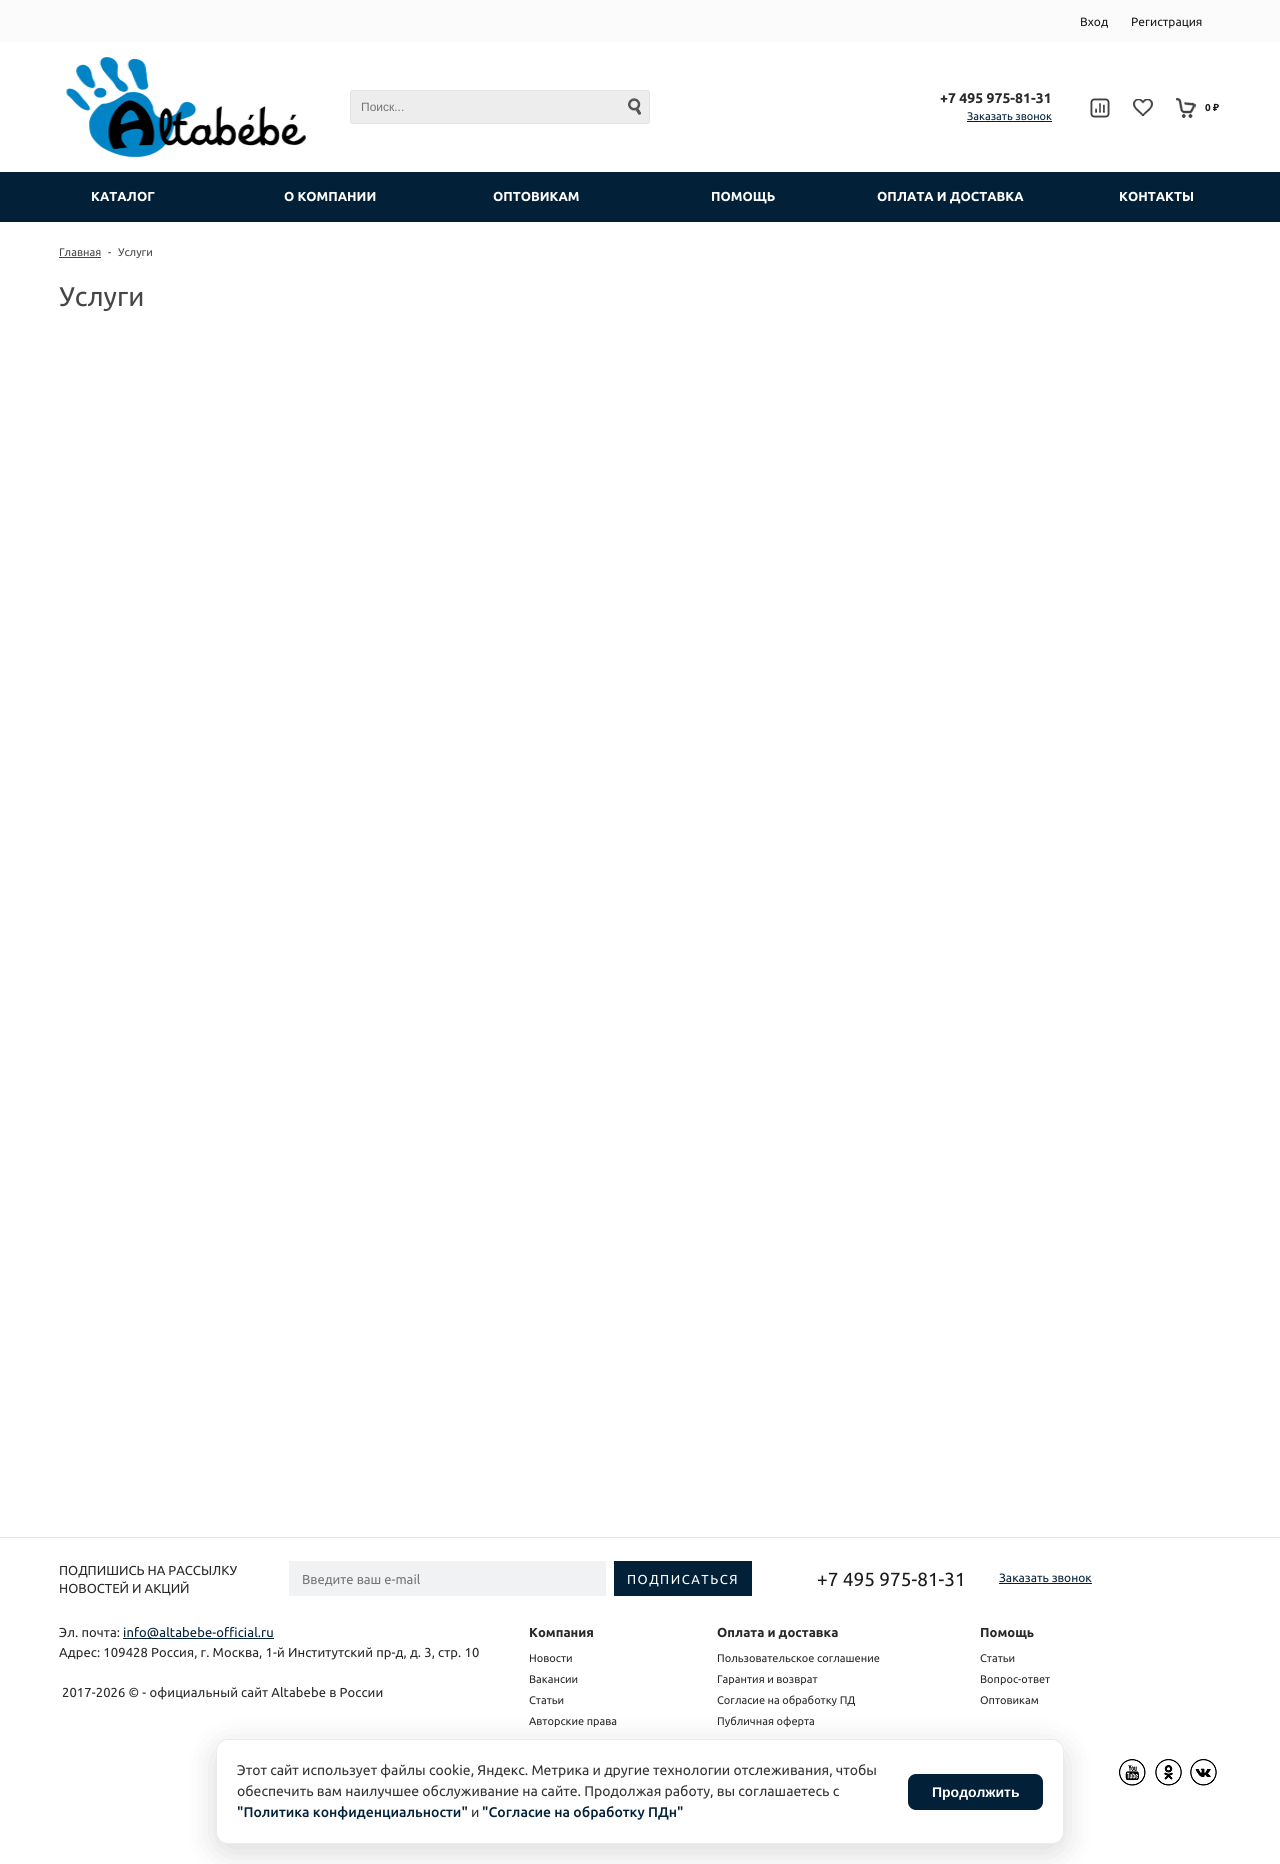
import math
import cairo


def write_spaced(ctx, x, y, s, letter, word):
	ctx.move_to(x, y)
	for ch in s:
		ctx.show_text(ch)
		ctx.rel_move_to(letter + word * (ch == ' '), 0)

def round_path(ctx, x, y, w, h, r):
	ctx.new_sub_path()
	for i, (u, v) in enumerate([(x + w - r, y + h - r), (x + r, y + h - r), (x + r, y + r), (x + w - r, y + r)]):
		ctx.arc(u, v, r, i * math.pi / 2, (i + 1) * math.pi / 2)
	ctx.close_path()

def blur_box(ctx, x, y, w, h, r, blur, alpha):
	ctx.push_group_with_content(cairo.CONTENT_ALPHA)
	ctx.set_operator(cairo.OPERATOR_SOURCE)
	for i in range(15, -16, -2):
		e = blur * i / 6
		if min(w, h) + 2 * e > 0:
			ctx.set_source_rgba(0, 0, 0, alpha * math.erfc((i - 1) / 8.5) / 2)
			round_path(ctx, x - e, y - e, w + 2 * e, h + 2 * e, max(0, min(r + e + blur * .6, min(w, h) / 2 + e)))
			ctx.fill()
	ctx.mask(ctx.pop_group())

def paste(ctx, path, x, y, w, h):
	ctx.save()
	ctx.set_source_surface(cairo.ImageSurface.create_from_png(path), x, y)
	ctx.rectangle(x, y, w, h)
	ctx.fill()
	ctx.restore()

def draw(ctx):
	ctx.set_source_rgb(1, 1, 1)
	ctx.paint()
	ctx.set_source_rgb(0.984, 0.984, 0.984)
	ctx.rectangle(0, 0, 1280, 42)
	ctx.fill()
	ctx.select_font_face('Ubuntu')
	ctx.set_font_size(12)
	ctx.set_source_rgb(0.114, 0.102, 0.102)
	ctx.move_to(1080, 26)
	ctx.show_text('Вход')
	ctx.move_to(1131, 26)
	ctx.show_text('Регистрация')
	paste(ctx, 'media/1.png', 66, 57, 240, 100)
	ctx.set_source_rgb(0.929, 0.929, 0.929)
	round_path(ctx, 350.5, 90.5, 299, 33, 2.5)
	ctx.fill_preserve()
	ctx.set_source_rgb(0.89, 0.89, 0.89)
	ctx.set_line_width(1)
	ctx.stroke()
	ctx.select_font_face('Liberation Sans')
	ctx.set_source_rgb(0.459, 0.459, 0.459)
	ctx.move_to(361, 111)
	ctx.show_text('Поиск...')
	paste(ctx, 'media/2.png', 628, 98, 13, 17)
	ctx.select_font_face('Ubuntu', cairo.FONT_SLANT_NORMAL, cairo.FONT_WEIGHT_BOLD)
	ctx.set_font_size(14)
	ctx.set_source_rgb(0.161, 0.161, 0.161)
	ctx.move_to(940, 103)
	ctx.show_text('+7 495 975-81-31')
	ctx.select_font_face('Ubuntu')
	ctx.set_font_size(11)
	ctx.set_source_rgb(0.012, 0.125, 0.224)
	ctx.move_to(967, 120)
	ctx.show_text('Заказать звонок')
	ctx.rectangle(967, 121, 85, 1)
	ctx.fill()
	paste(ctx, 'media/3.png', 1090, 98, 20, 20)
	paste(ctx, 'media/4.png', 1133, 99, 20, 17)
	paste(ctx, 'media/5.png', 1176, 98, 20, 20)
	ctx.select_font_face('Ubuntu', cairo.FONT_SLANT_NORMAL, cairo.FONT_WEIGHT_BOLD)
	ctx.set_font_size(10)
	ctx.set_source_rgb(0.114, 0.102, 0.102)
	ctx.move_to(1205, 111)
	ctx.show_text('0')
	ctx.select_font_face('Noto Sans', cairo.FONT_SLANT_NORMAL, cairo.FONT_WEIGHT_BOLD)
	ctx.move_to(1213, 111)
	ctx.show_text('₽')
	ctx.set_source_rgb(0.012, 0.125, 0.224)
	ctx.rectangle(0, 172, 1280, 50)
	ctx.fill()
	ctx.select_font_face('Ubuntu', cairo.FONT_SLANT_NORMAL, cairo.FONT_WEIGHT_BOLD)
	ctx.set_font_size(13)
	ctx.set_source_rgb(1, 1, 1)
	for x, y, s in [
		(91, 201, 'КАТАЛОГ'),
		(284, 201, 'О КОМПАНИИ'),
		(493, 201, 'ОПТОВИКАМ'),
		(711, 201, 'ПОМОЩЬ'),
		(877, 201, 'ОПЛАТА И ДОСТАВКА'),
		(1119, 201, 'КОНТАКТЫ'),
	]:
		ctx.move_to(x, y)
		ctx.show_text(s)
	ctx.select_font_face('Ubuntu')
	ctx.set_font_size(11)
	ctx.set_source_rgb(0.267, 0.275, 0.282)
	ctx.move_to(59, 256)
	ctx.show_text('Главная')
	ctx.rectangle(59, 257, 42, 1)
	ctx.fill()
	ctx.move_to(108, 256)
	ctx.show_text('-')
	ctx.move_to(118, 256)
	ctx.show_text('Услуги')
	ctx.set_font_size(27)
	ctx.move_to(59, 306)
	ctx.show_text('Услуги')
	ctx.set_source_rgb(0.906, 0.906, 0.906)
	ctx.rectangle(0, 1537, 1280, 1)
	ctx.fill()
	ctx.set_font_size(13)
	ctx.set_source_rgb(0.161, 0.161, 0.161)
	ctx.move_to(59, 1575)
	ctx.show_text('ПОДПИШИСЬ НА РАССЫЛКУ')
	ctx.move_to(59, 1593)
	ctx.show_text('НОВОСТЕЙ И АКЦИЙ')
	ctx.set_source_rgb(0.941, 0.949, 0.953)
	ctx.rectangle(289, 1561, 317, 35)
	ctx.fill()
	ctx.set_source_rgb(0.459, 0.459, 0.459)
	ctx.move_to(302, 1584)
	ctx.show_text('Введите ваш e-mail')
	ctx.set_source_rgb(0.012, 0.125, 0.224)
	ctx.rectangle(614, 1561, 138, 35)
	ctx.fill()
	ctx.set_source_rgb(1, 1, 1)
	write_spaced(ctx, 627, 1584, 'ПОДПИСАТЬСЯ', 1.5, 0)
	ctx.set_font_size(19)
	ctx.set_source_rgb(0.114, 0.102, 0.102)
	ctx.move_to(817, 1586)
	ctx.show_text('+7 495 975-81-31')
	ctx.set_font_size(12)
	ctx.set_source_rgb(0.012, 0.125, 0.224)
	ctx.move_to(999, 1582)
	ctx.show_text('Заказать звонок')
	ctx.rectangle(999, 1583, 93, 1)
	ctx.fill()
	ctx.set_font_size(13)
	ctx.set_source_rgb(0.161, 0.161, 0.161)
	write_spaced(ctx, 59, 1637, 'Эл. почта:', 0.1, 0)
	ctx.set_source_rgb(0.012, 0.125, 0.224)
	ctx.rectangle(123, 1638, 151, 1)
	ctx.fill()
	write_spaced(ctx, 123, 1637, 'info@altabebe-official.ru', 0.1, 0)
	ctx.set_source_rgb(0.161, 0.161, 0.161)
	write_spaced(ctx, 59, 1657, 'Адрес: 109428 Россия, г. Москва, 1-й Институтский пр-д, д. 3, стр. 10', 0.1, 0)
	write_spaced(ctx, 62, 1697, '2017-2026 © - официальный сайт Altabebe в России', 0.1, 0)
	ctx.select_font_face('Ubuntu', cairo.FONT_SLANT_NORMAL, cairo.FONT_WEIGHT_BOLD)
	ctx.move_to(529, 1637)
	ctx.show_text('Компания')
	ctx.select_font_face('Ubuntu')
	ctx.set_font_size(11)
	for x, y, s in [
		(529, 1662, 'Новости'),
		(529, 1683, 'Вакансии'),
		(529, 1704, 'Статьи'),
		(529, 1725, 'Авторские права'),
	]:
		ctx.move_to(x, y)
		ctx.show_text(s)
	ctx.select_font_face('Ubuntu', cairo.FONT_SLANT_NORMAL, cairo.FONT_WEIGHT_BOLD)
	ctx.set_font_size(13)
	ctx.move_to(717, 1637)
	ctx.show_text('Оплата и доставка')
	ctx.select_font_face('Ubuntu')
	ctx.set_font_size(11)
	for x, y, s in [
		(717, 1662, 'Пользовательское соглашение'),
		(717, 1683, 'Гарантия и возврат'),
		(717, 1704, 'Согласие на обработку ПД'),
		(717, 1725, 'Публичная оферта'),
	]:
		ctx.move_to(x, y)
		ctx.show_text(s)
	ctx.select_font_face('Ubuntu', cairo.FONT_SLANT_NORMAL, cairo.FONT_WEIGHT_BOLD)
	ctx.set_font_size(13)
	ctx.move_to(980, 1637)
	ctx.show_text('Помощь')
	ctx.select_font_face('Ubuntu')
	ctx.set_font_size(11)
	for x, y, s in [
		(980, 1662, 'Статьи'),
		(980, 1683, 'Вопрос-ответ'),
		(980, 1704, 'Оптовикам'),
	]:
		ctx.move_to(x, y)
		ctx.show_text(s)
	paste(ctx, 'media/6.png', 1119, 1759, 27, 27)
	paste(ctx, 'media/7.png', 1155, 1759, 27, 27)
	paste(ctx, 'media/8.png', 1190, 1759, 27, 27)
	ctx.set_source_rgb(0, 0, 0)
	blur_box(ctx, 216, 1747, 848, 105, 12, 16, 0.15)
	ctx.set_source_rgb(1, 1, 1)
	round_path(ctx, 216.5, 1739.5, 847, 104, 11.5)
	ctx.fill_preserve()
	ctx.set_source_rgb(0.914, 0.925, 0.937)
	ctx.stroke()
	ctx.set_font_size(14)
	ctx.set_source_rgb(0.2, 0.2, 0.2)
	ctx.move_to(237, 1775)
	ctx.show_text('Этот сайт использует файлы cookie, Яндекс. Метрика и другие технологии отслеживания, чтобы')
	ctx.move_to(237, 1796)
	ctx.show_text('обеспечить вам наилучшее обслуживание на сайте. Продолжая работу, вы соглашаетесь с')
	ctx.select_font_face('Ubuntu Medium')
	ctx.set_source_rgb(0.012, 0.125, 0.224)
	ctx.move_to(237, 1817)
	ctx.show_text('"Политика конфиденциальности"')
	ctx.select_font_face('Ubuntu')
	ctx.set_source_rgb(0.2, 0.2, 0.2)
	ctx.move_to(471, 1817)
	ctx.show_text('и')
	ctx.select_font_face('Ubuntu Medium')
	ctx.set_source_rgb(0.012, 0.125, 0.224)
	ctx.move_to(482, 1817)
	ctx.show_text('"Согласие на обработку ПДн"')
	round_path(ctx, 908, 1774, 135, 36, 8)
	ctx.fill()
	ctx.select_font_face('Liberation Sans', cairo.FONT_SLANT_NORMAL, cairo.FONT_WEIGHT_BOLD)
	ctx.set_source_rgb(1, 1, 1)
	ctx.move_to(932, 1797)
	ctx.show_text('Продолжить')


surface = cairo.ImageSurface(cairo.FORMAT_RGB24, 1280, 1864)
ctx = cairo.Context(surface)
options = cairo.FontOptions()
options.set_hint_metrics(cairo.HINT_METRICS_OFF)
options.set_hint_style(cairo.HINT_STYLE_NONE)
ctx.set_font_options(options)
ctx.set_miter_limit(4)
draw(ctx)
surface.write_to_png('image.png')
